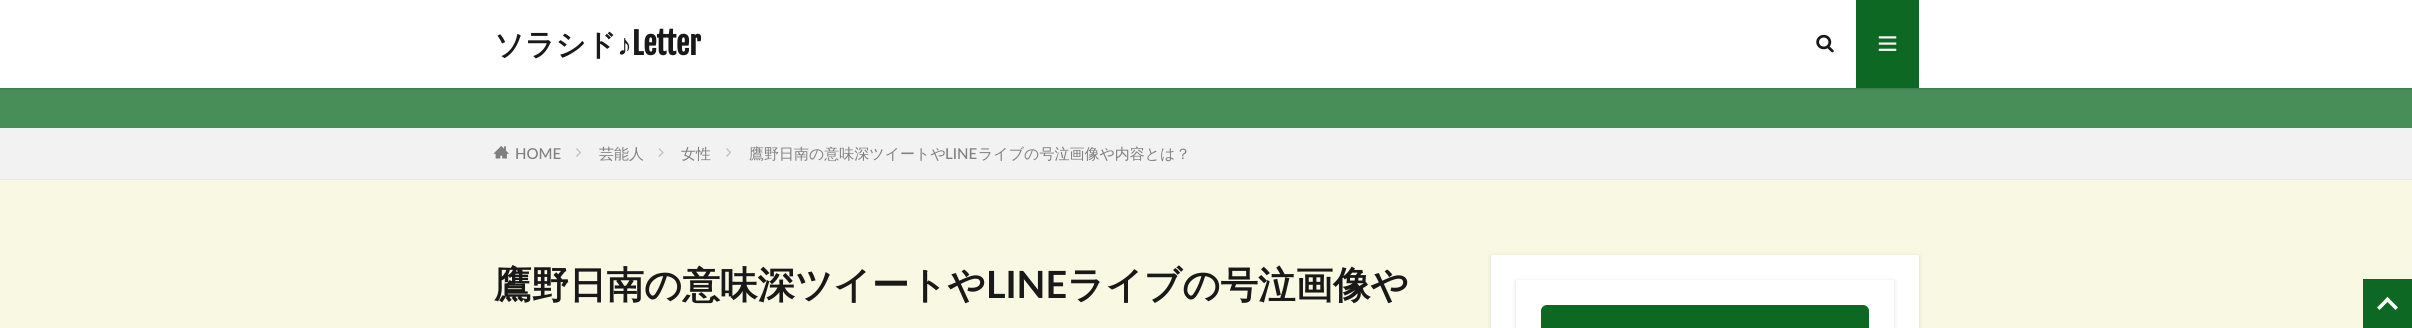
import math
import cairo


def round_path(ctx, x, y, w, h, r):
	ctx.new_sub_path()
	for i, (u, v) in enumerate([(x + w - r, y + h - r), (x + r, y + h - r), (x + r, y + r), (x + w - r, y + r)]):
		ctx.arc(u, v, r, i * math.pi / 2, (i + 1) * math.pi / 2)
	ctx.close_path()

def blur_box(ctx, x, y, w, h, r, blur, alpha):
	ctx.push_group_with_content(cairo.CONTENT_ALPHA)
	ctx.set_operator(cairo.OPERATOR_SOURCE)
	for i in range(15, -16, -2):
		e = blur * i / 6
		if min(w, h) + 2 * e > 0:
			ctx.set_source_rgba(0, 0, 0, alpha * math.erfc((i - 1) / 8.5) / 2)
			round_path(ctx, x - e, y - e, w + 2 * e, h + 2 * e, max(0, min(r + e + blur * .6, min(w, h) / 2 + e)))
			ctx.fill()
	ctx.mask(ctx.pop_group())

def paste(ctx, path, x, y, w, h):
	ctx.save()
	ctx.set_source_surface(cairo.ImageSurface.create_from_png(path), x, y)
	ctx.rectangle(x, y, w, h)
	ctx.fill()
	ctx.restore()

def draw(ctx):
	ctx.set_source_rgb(0.976, 0.976, 0.89)
	ctx.paint()
	ctx.set_source_rgb(0.278, 0.557, 0.349)
	ctx.rectangle(0, 88, 2412, 40)
	ctx.fill()
	ctx.set_source_rgb(0, 0, 0)
	blur_box(ctx, 0, 1, 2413, 88, 0, 1, 0.15)
	ctx.set_source_rgb(1, 1, 1)
	ctx.rectangle(0, 0, 2412, 88)
	ctx.fill()
	ctx.select_font_face('WenQuanYi Zen Hei', cairo.FONT_SLANT_NORMAL, cairo.FONT_WEIGHT_BOLD)
	ctx.set_font_size(30)
	ctx.set_source_rgb(0.098, 0.098, 0.098)
	ctx.move_to(494, 55)
	ctx.show_text('ソラシド')
	ctx.select_font_face('Liberation Sans', cairo.FONT_SLANT_NORMAL, cairo.FONT_WEIGHT_BOLD)
	ctx.move_to(617, 55)
	ctx.show_text('♪')
	ctx.select_font_face('Fjalla One', cairo.FONT_SLANT_NORMAL, cairo.FONT_WEIGHT_BOLD)
	ctx.move_to(632, 55)
	ctx.show_text('Letter')
	paste(ctx, 'media/1.png', 1816, 34, 18, 19)
	ctx.set_source_rgb(0.047, 0.408, 0.133)
	ctx.rectangle(1856, 0, 63, 88)
	ctx.fill()
	paste(ctx, 'media/2.png', 1878, 36, 19, 15)
	ctx.set_source_rgb(0.949, 0.949, 0.949)
	ctx.rectangle(0, 128, 2412, 51)
	ctx.fill()
	ctx.set_source_rgb(0.902, 0.902, 0.902)
	ctx.rectangle(0, 179, 2412, 1)
	ctx.fill()
	paste(ctx, 'media/3.png', 493, 146, 16, 13)
	ctx.select_font_face('Lato Medium')
	ctx.set_font_size(15)
	ctx.set_source_rgb(0.498, 0.498, 0.498)
	ctx.move_to(515, 159)
	ctx.show_text('HOME')
	ctx.set_source_rgb(0.749, 0.749, 0.749)
	ctx.new_path()
	ctx.move_to(577, 148)
	ctx.line_to(581, 152.5)
	ctx.line_to(580.5, 153.5)
	ctx.line_to(576, 149)
	ctx.close_path()
	ctx.fill()
	ctx.new_path()
	ctx.move_to(580.5, 151.5)
	ctx.line_to(581, 152.5)
	ctx.line_to(577, 157)
	ctx.line_to(576, 156)
	ctx.close_path()
	ctx.fill()
	ctx.select_font_face('WenQuanYi Zen Hei Medium')
	ctx.set_source_rgb(0.498, 0.498, 0.498)
	ctx.move_to(599, 159)
	ctx.show_text('芸能人')
	ctx.set_source_rgb(0.749, 0.749, 0.749)
	ctx.new_path()
	ctx.move_to(659.5, 148)
	ctx.line_to(663.5, 152.5)
	ctx.line_to(663, 153.5)
	ctx.line_to(658.5, 149)
	ctx.close_path()
	ctx.fill()
	ctx.new_path()
	ctx.move_to(663, 151.5)
	ctx.line_to(663.5, 152.5)
	ctx.line_to(659.5, 157)
	ctx.line_to(658.5, 156)
	ctx.close_path()
	ctx.fill()
	ctx.set_source_rgb(0.498, 0.498, 0.498)
	ctx.move_to(681, 159)
	ctx.show_text('女性')
	ctx.set_source_rgb(0.749, 0.749, 0.749)
	ctx.new_path()
	ctx.move_to(727, 148)
	ctx.line_to(731, 152.5)
	ctx.line_to(730.5, 153.5)
	ctx.line_to(726, 149)
	ctx.close_path()
	ctx.fill()
	ctx.new_path()
	ctx.move_to(730.5, 151.5)
	ctx.line_to(731, 152.5)
	ctx.line_to(727, 157)
	ctx.line_to(726, 156)
	ctx.close_path()
	ctx.fill()
	ctx.set_source_rgb(0.498, 0.498, 0.498)
	ctx.move_to(749, 159)
	ctx.show_text('鷹野日南の意味深ツイートや')
	ctx.select_font_face('Lato Medium')
	ctx.move_to(945, 159)
	ctx.show_text('LINE')
	ctx.select_font_face('WenQuanYi Zen Hei Medium')
	ctx.move_to(978, 159)
	ctx.show_text('ライブの号泣画像や内容とは？')
	ctx.select_font_face('WenQuanYi Zen Hei', cairo.FONT_SLANT_NORMAL, cairo.FONT_WEIGHT_BOLD)
	ctx.set_font_size(37.5)
	ctx.set_source_rgb(0.098, 0.098, 0.098)
	ctx.move_to(494, 298)
	ctx.show_text('鷹野日南の意味深ツイートや')
	ctx.select_font_face('Lato', cairo.FONT_SLANT_NORMAL, cairo.FONT_WEIGHT_BOLD)
	ctx.move_to(986, 298)
	ctx.show_text('LINE')
	ctx.select_font_face('WenQuanYi Zen Hei', cairo.FONT_SLANT_NORMAL, cairo.FONT_WEIGHT_BOLD)
	ctx.move_to(1067, 298)
	ctx.show_text('ライブの号泣画像や')
	ctx.set_source_rgb(0, 0, 0)
	blur_box(ctx, 1491, 256, 428, 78, 0, 2, 0.15)
	ctx.set_source_rgb(1, 1, 1)
	ctx.rectangle(1491, 255, 428, 73)
	ctx.fill()
	ctx.set_source_rgb(0, 0, 0)
	blur_box(ctx, 1516, 281, 378, 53, 0, 2, 0.15)
	ctx.set_source_rgb(1, 1, 1)
	ctx.rectangle(1516, 280, 378, 48)
	ctx.fill()
	ctx.set_source_rgb(0.047, 0.408, 0.133)
	round_path(ctx, 1541, 305, 328, 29, 6)
	ctx.fill()
	ctx.rectangle(2363, 279, 49, 49)
	ctx.fill()
	ctx.set_source_rgb(1, 1, 1)
	ctx.new_path()
	ctx.move_to(2377, 307.5)
	ctx.line_to(2387.5, 297)
	ctx.line_to(2390, 299.5)
	ctx.line_to(2379.5, 310)
	ctx.close_path()
	ctx.fill()
	ctx.new_path()
	ctx.move_to(2385, 299.5)
	ctx.line_to(2387.5, 297)
	ctx.line_to(2398, 307.5)
	ctx.line_to(2395.5, 310)
	ctx.close_path()
	ctx.fill()


surface = cairo.ImageSurface(cairo.FORMAT_RGB24, 2412, 328)
ctx = cairo.Context(surface)
options = cairo.FontOptions()
options.set_hint_metrics(cairo.HINT_METRICS_OFF)
options.set_hint_style(cairo.HINT_STYLE_NONE)
ctx.set_font_options(options)
ctx.set_miter_limit(4)
draw(ctx)
surface.write_to_png('image.png')
